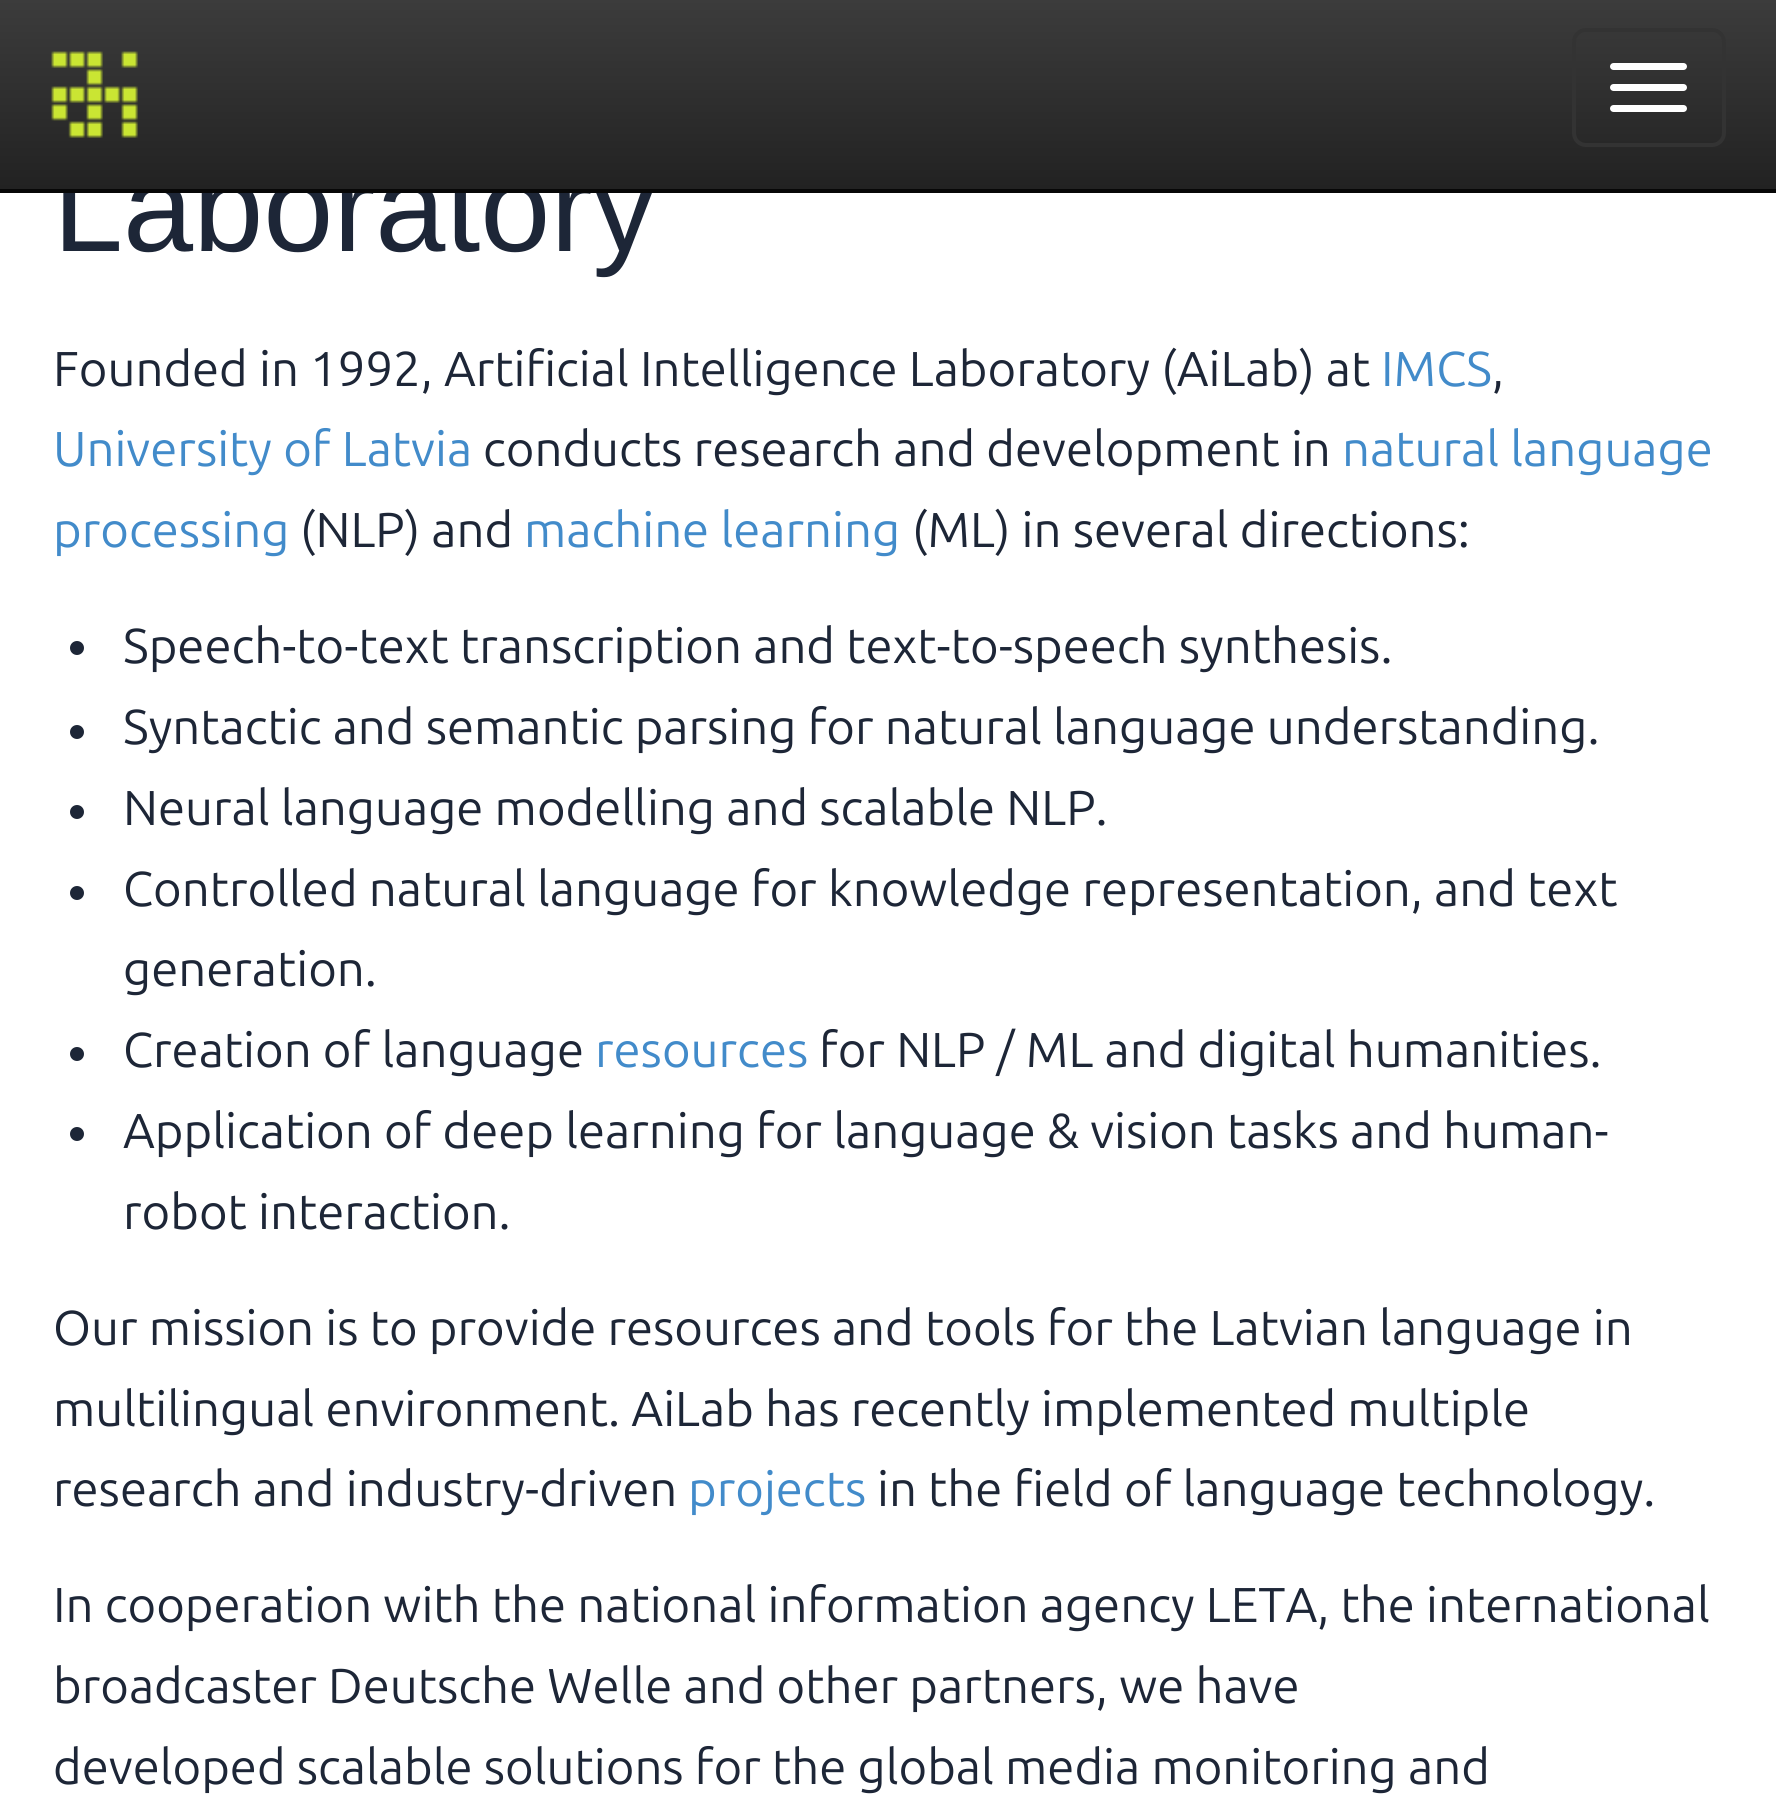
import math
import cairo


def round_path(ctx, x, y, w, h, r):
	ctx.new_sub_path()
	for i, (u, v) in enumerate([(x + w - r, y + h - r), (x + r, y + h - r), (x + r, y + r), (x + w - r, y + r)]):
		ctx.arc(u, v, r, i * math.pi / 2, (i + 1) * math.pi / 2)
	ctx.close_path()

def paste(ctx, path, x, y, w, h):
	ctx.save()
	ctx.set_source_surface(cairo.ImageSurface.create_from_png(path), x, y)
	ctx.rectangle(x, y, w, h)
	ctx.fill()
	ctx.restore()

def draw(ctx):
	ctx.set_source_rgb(1, 1, 1)
	ctx.paint()
	ctx.select_font_face('Liberation Sans')
	ctx.set_font_size(126)
	ctx.set_source_rgb(0.114, 0.149, 0.216)
	ctx.move_to(53, 251)
	ctx.show_text('Laboratory')
	gradient = cairo.LinearGradient(889, 0, 889, 189)
	gradient.add_color_stop_rgba(0, 0.235, 0.235, 0.235, 1)
	gradient.add_color_stop_rgba(1, 0.133, 0.133, 0.133, 1)
	ctx.set_source(gradient)
	ctx.rectangle(0, 0, 1776, 189)
	ctx.fill()
	ctx.set_source_rgb(0.031, 0.031, 0.031)
	ctx.rectangle(0, 189, 1776, 4)
	ctx.fill()
	paste(ctx, 'media/1.png', 51, 51, 87, 87)
	round_path(ctx, 1574, 30, 150, 115, 12)
	ctx.set_source_rgb(0.2, 0.2, 0.2)
	ctx.set_line_width(4)
	ctx.stroke()
	ctx.set_source_rgb(1, 1, 1)
	round_path(ctx, 1610, 63, 77, 7, 3.5)
	ctx.fill()
	round_path(ctx, 1610, 84, 77, 7, 3.5)
	ctx.fill()
	round_path(ctx, 1610, 105, 77, 7, 3.5)
	ctx.fill()
	ctx.select_font_face('Ubuntu')
	ctx.set_font_size(49)
	ctx.set_source_rgb(0.114, 0.149, 0.216)
	ctx.move_to(53, 386)
	ctx.show_text('Founded in 1992, Artificial Intelligence Laboratory (AiLab) at')
	ctx.set_source_rgb(0.259, 0.545, 0.792)
	ctx.move_to(1381, 386)
	ctx.show_text('IMCS')
	ctx.set_source_rgb(0.114, 0.149, 0.216)
	ctx.move_to(1492, 386)
	ctx.show_text(',')
	ctx.set_source_rgb(0.259, 0.545, 0.792)
	ctx.move_to(53, 466)
	ctx.show_text('University of Latvia')
	ctx.set_source_rgb(0.114, 0.149, 0.216)
	ctx.move_to(483, 466)
	ctx.show_text('conducts research and development in')
	ctx.set_source_rgb(0.259, 0.545, 0.792)
	ctx.move_to(1342, 466)
	ctx.show_text('natural language')
	ctx.move_to(53, 547)
	ctx.show_text('processing')
	ctx.set_source_rgb(0.114, 0.149, 0.216)
	ctx.move_to(300, 547)
	ctx.show_text('(NLP) and')
	ctx.set_source_rgb(0.259, 0.545, 0.792)
	ctx.move_to(524, 547)
	ctx.show_text('machine learning')
	ctx.set_source_rgb(0.114, 0.149, 0.216)
	ctx.move_to(912, 547)
	ctx.show_text('(ML) in several directions:')
	ctx.new_path()
	ctx.arc(77, 648, 7, 0, 2 * math.pi)
	ctx.fill()
	ctx.move_to(123, 663)
	ctx.show_text('Speech-to-text transcription and text-to-speech synthesis.')
	ctx.new_path()
	ctx.arc(77, 732, 7, 0, 2 * math.pi)
	ctx.fill()
	ctx.move_to(123, 744)
	ctx.show_text('Syntactic and semantic parsing for natural language understanding.')
	ctx.new_path()
	ctx.arc(77, 812, 7, 0, 2 * math.pi)
	ctx.fill()
	ctx.move_to(123, 825)
	ctx.show_text('Neural language modelling and scalable NLP.')
	ctx.new_path()
	ctx.arc(77, 893, 7, 0, 2 * math.pi)
	ctx.fill()
	ctx.move_to(123, 906)
	ctx.show_text('Controlled natural language for knowledge representation, and text')
	ctx.move_to(123, 986)
	ctx.show_text('generation.')
	ctx.new_path()
	ctx.arc(77, 1054, 7, 0, 2 * math.pi)
	ctx.fill()
	ctx.move_to(123, 1067)
	ctx.show_text('Creation of language')
	ctx.set_source_rgb(0.259, 0.545, 0.792)
	ctx.move_to(595, 1067)
	ctx.show_text('resources')
	ctx.set_source_rgb(0.114, 0.149, 0.216)
	ctx.move_to(819, 1067)
	ctx.show_text('for NLP / ML and digital humanities.')
	ctx.new_path()
	ctx.arc(77, 1134, 7, 0, 2 * math.pi)
	ctx.fill()
	for x, y, s in [
		(123, 1148, 'Application of deep learning for language & vision tasks and human-'),
		(123, 1229, 'robot interaction.'),
		(53, 1345, 'Our mission is to provide resources and tools for the Latvian language in'),
		(53, 1426, 'multilingual environment. AiLab has recently implemented multiple'),
		(53, 1506, 'research and industry-driven'),
	]:
		ctx.move_to(x, y)
		ctx.show_text(s)
	ctx.set_source_rgb(0.259, 0.545, 0.792)
	ctx.move_to(688, 1506)
	ctx.show_text('projects')
	ctx.set_source_rgb(0.114, 0.149, 0.216)
	for x, y, s in [
		(877, 1506, 'in the field of language technology.'),
		(53, 1622, 'In cooperation with the national information agency LETA, the international'),
		(53, 1703, 'broadcaster Deutsche Welle and other partners, we have'),
		(53, 1784, 'developed scalable solutions for the global media monitoring and'),
	]:
		ctx.move_to(x, y)
		ctx.show_text(s)


surface = cairo.ImageSurface(cairo.FORMAT_RGB24, 1776, 1794)
ctx = cairo.Context(surface)
options = cairo.FontOptions()
options.set_hint_metrics(cairo.HINT_METRICS_OFF)
options.set_hint_style(cairo.HINT_STYLE_NONE)
ctx.set_font_options(options)
ctx.set_miter_limit(4)
draw(ctx)
surface.write_to_png('image.png')
